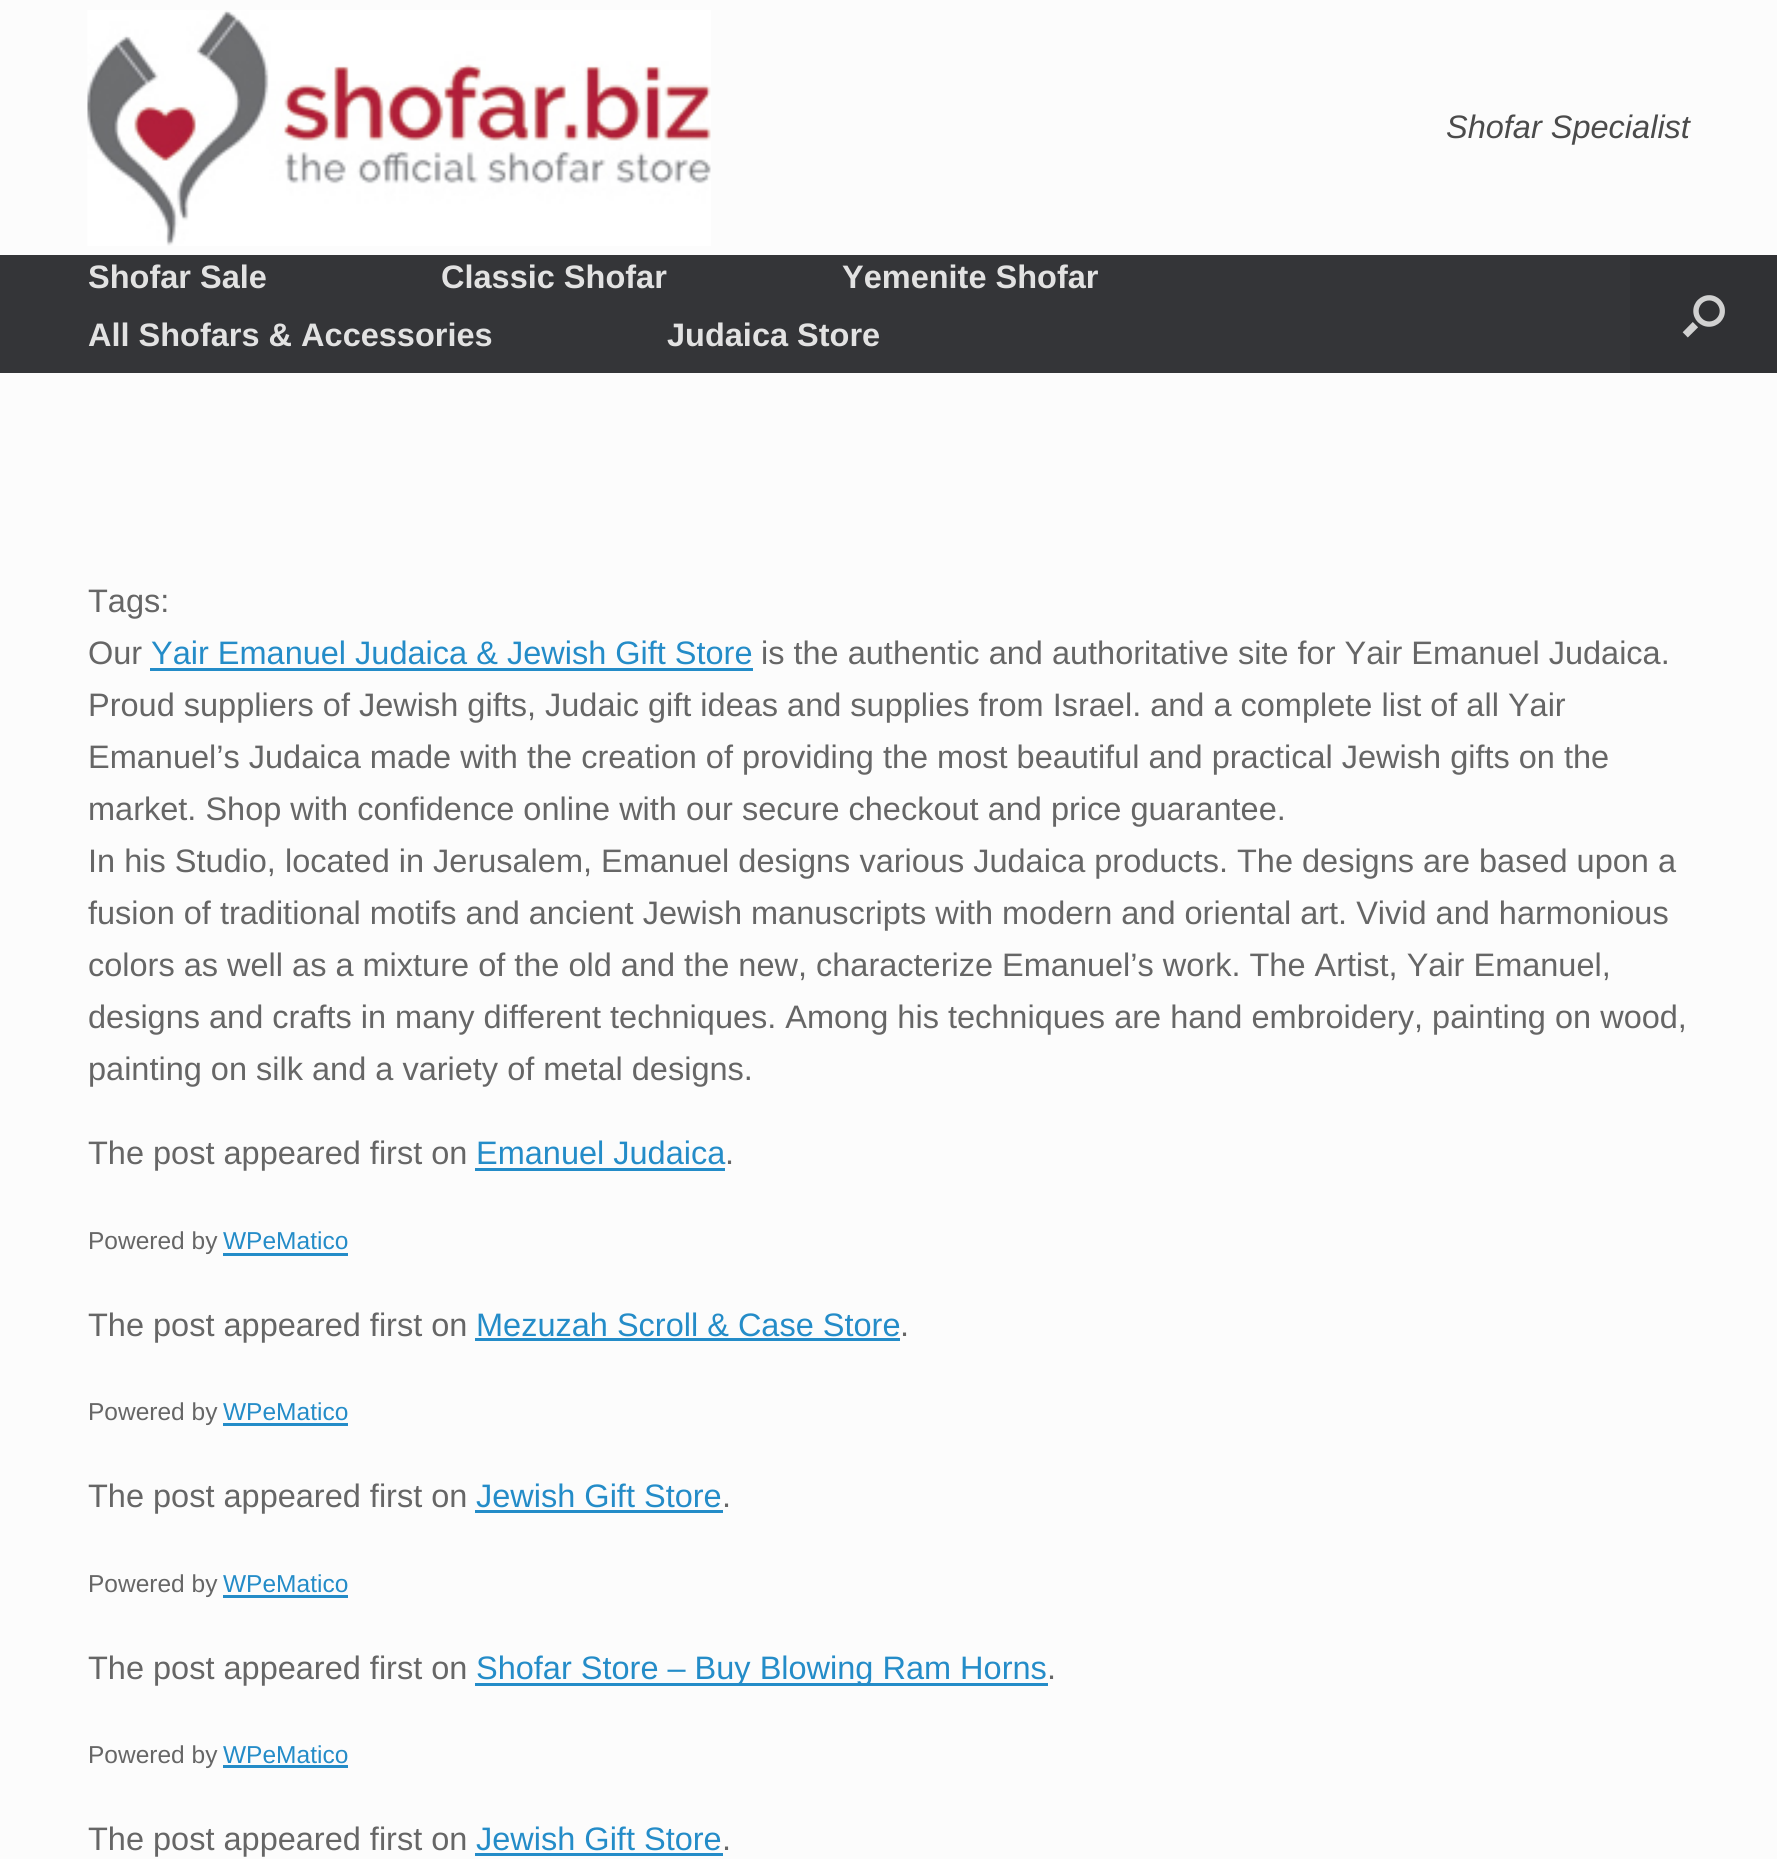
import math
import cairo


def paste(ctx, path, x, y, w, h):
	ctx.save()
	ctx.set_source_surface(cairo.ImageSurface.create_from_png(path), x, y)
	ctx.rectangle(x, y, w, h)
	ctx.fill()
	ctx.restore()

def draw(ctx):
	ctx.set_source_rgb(0.988, 0.988, 0.988)
	ctx.paint()
	paste(ctx, 'media/1.png', 87, 10, 624, 236)
	ctx.select_font_face('Liberation Sans', cairo.FONT_SLANT_ITALIC)
	ctx.set_font_size(32.5)
	ctx.set_source_rgb(0.294, 0.294, 0.294)
	ctx.move_to(1446, 138)
	ctx.show_text('Shofar Specialist')
	ctx.set_source_rgb(0.204, 0.208, 0.22)
	ctx.rectangle(0, 255, 1630, 118)
	ctx.fill()
	ctx.select_font_face('Liberation Sans', cairo.FONT_SLANT_NORMAL, cairo.FONT_WEIGHT_BOLD)
	ctx.set_source_rgb(0.886, 0.886, 0.886)
	for x, y, s in [
		(88, 288, 'Shofar Sale'),
		(441, 288, 'Classic Shofar'),
		(842, 288, 'Yemenite Shofar'),
		(88, 346, 'All Shofars & Accessories'),
		(667, 346, 'Judaica Store'),
	]:
		ctx.move_to(x, y)
		ctx.show_text(s)
	ctx.set_source_rgb(0.188, 0.192, 0.204)
	ctx.rectangle(1630, 255, 147, 118)
	ctx.fill()
	paste(ctx, 'media/2.png', 1682, 295, 43, 43)
	ctx.select_font_face('Liberation Sans')
	ctx.set_source_rgb(0.4, 0.4, 0.4)
	ctx.move_to(88, 612)
	ctx.show_text('Tags:')
	ctx.move_to(88, 664)
	ctx.show_text('Our')
	ctx.set_source_rgb(0.141, 0.549, 0.784)
	ctx.move_to(151, 664)
	ctx.show_text('Yair Emanuel Judaica & Jewish Gift Store')
	ctx.rectangle(150, 668, 603, 3)
	ctx.fill()
	ctx.set_source_rgb(0.4, 0.4, 0.4)
	for x, y, s in [
		(761, 664, 'is the authentic and authoritative site for Yair Emanuel Judaica.'),
		(88, 716, 'Proud suppliers of Jewish gifts, Judaic gift ideas and supplies from Israel. and a complete list of all Yair'),
		(88, 768, 'Emanuel’s Judaica made with the creation of providing the most beautiful and practical Jewish gifts on the'),
		(88, 820, 'market. Shop with confidence online with our secure checkout and price guarantee.'),
		(88, 872, 'In his Studio, located in Jerusalem, Emanuel designs various Judaica products. The designs are based upon a'),
		(88, 924, 'fusion of traditional motifs and ancient Jewish manuscripts with modern and oriental art. Vivid and harmonious'),
		(88, 976, 'colors as well as a mixture of the old and the new, characterize Emanuel’s work. The Artist, Yair Emanuel,'),
		(88, 1028, 'designs and crafts in many different techniques. Among his techniques are hand embroidery, painting on wood,'),
		(88, 1080, 'painting on silk and a variety of metal designs.'),
		(88, 1164, 'The post appeared first on'),
	]:
		ctx.move_to(x, y)
		ctx.show_text(s)
	ctx.set_source_rgb(0.141, 0.549, 0.784)
	ctx.move_to(476, 1164)
	ctx.show_text('Emanuel Judaica')
	ctx.rectangle(475, 1168, 250, 3)
	ctx.fill()
	ctx.set_source_rgb(0.4, 0.4, 0.4)
	ctx.move_to(725, 1164)
	ctx.show_text('.')
	ctx.set_font_size(24.5)
	ctx.move_to(88, 1249)
	ctx.show_text('Powered by')
	ctx.set_source_rgb(0.141, 0.549, 0.784)
	ctx.move_to(223, 1249)
	ctx.show_text('WPeMatico')
	ctx.rectangle(223, 1253, 125, 3)
	ctx.fill()
	ctx.set_font_size(32.5)
	ctx.set_source_rgb(0.4, 0.4, 0.4)
	ctx.move_to(88, 1336)
	ctx.show_text('The post appeared first on')
	ctx.set_source_rgb(0.141, 0.549, 0.784)
	ctx.move_to(476, 1336)
	ctx.show_text('Mezuzah Scroll & Case Store')
	ctx.rectangle(475, 1338, 425, 3)
	ctx.fill()
	ctx.set_source_rgb(0.4, 0.4, 0.4)
	ctx.move_to(900, 1336)
	ctx.show_text('.')
	ctx.set_font_size(24.5)
	ctx.move_to(88, 1420)
	ctx.show_text('Powered by')
	ctx.set_source_rgb(0.141, 0.549, 0.784)
	ctx.move_to(223, 1420)
	ctx.show_text('WPeMatico')
	ctx.rectangle(223, 1423, 125, 3)
	ctx.fill()
	ctx.set_font_size(32.5)
	ctx.set_source_rgb(0.4, 0.4, 0.4)
	ctx.move_to(88, 1507)
	ctx.show_text('The post appeared first on')
	ctx.set_source_rgb(0.141, 0.549, 0.784)
	ctx.move_to(476, 1507)
	ctx.show_text('Jewish Gift Store')
	ctx.rectangle(475, 1510, 248, 3)
	ctx.fill()
	ctx.set_source_rgb(0.4, 0.4, 0.4)
	ctx.move_to(722, 1507)
	ctx.show_text('.')
	ctx.set_font_size(24.5)
	ctx.move_to(88, 1592)
	ctx.show_text('Powered by')
	ctx.set_source_rgb(0.141, 0.549, 0.784)
	ctx.move_to(223, 1592)
	ctx.show_text('WPeMatico')
	ctx.rectangle(223, 1595, 125, 3)
	ctx.fill()
	ctx.set_font_size(32.5)
	ctx.set_source_rgb(0.4, 0.4, 0.4)
	ctx.move_to(88, 1679)
	ctx.show_text('The post appeared first on')
	ctx.set_source_rgb(0.141, 0.549, 0.784)
	ctx.rectangle(475, 1683, 573, 3)
	ctx.fill()
	ctx.move_to(476, 1679)
	ctx.show_text('Shofar Store – Buy Blowing Ram Horns')
	ctx.set_source_rgb(0.4, 0.4, 0.4)
	ctx.move_to(1047, 1679)
	ctx.show_text('.')
	ctx.set_font_size(24.5)
	ctx.move_to(88, 1763)
	ctx.show_text('Powered by')
	ctx.set_source_rgb(0.141, 0.549, 0.784)
	ctx.move_to(223, 1763)
	ctx.show_text('WPeMatico')
	ctx.rectangle(223, 1765, 125, 3)
	ctx.fill()
	ctx.set_font_size(32.5)
	ctx.set_source_rgb(0.4, 0.4, 0.4)
	ctx.move_to(88, 1850)
	ctx.show_text('The post appeared first on')
	ctx.set_source_rgb(0.141, 0.549, 0.784)
	ctx.move_to(476, 1850)
	ctx.show_text('Jewish Gift Store')
	ctx.rectangle(475, 1853, 248, 3)
	ctx.fill()
	ctx.set_source_rgb(0.4, 0.4, 0.4)
	ctx.move_to(722, 1850)
	ctx.show_text('.')


surface = cairo.ImageSurface(cairo.FORMAT_RGB24, 1777, 1859)
ctx = cairo.Context(surface)
options = cairo.FontOptions()
options.set_hint_metrics(cairo.HINT_METRICS_OFF)
options.set_hint_style(cairo.HINT_STYLE_NONE)
ctx.set_font_options(options)
ctx.set_miter_limit(4)
draw(ctx)
surface.write_to_png('image.png')
